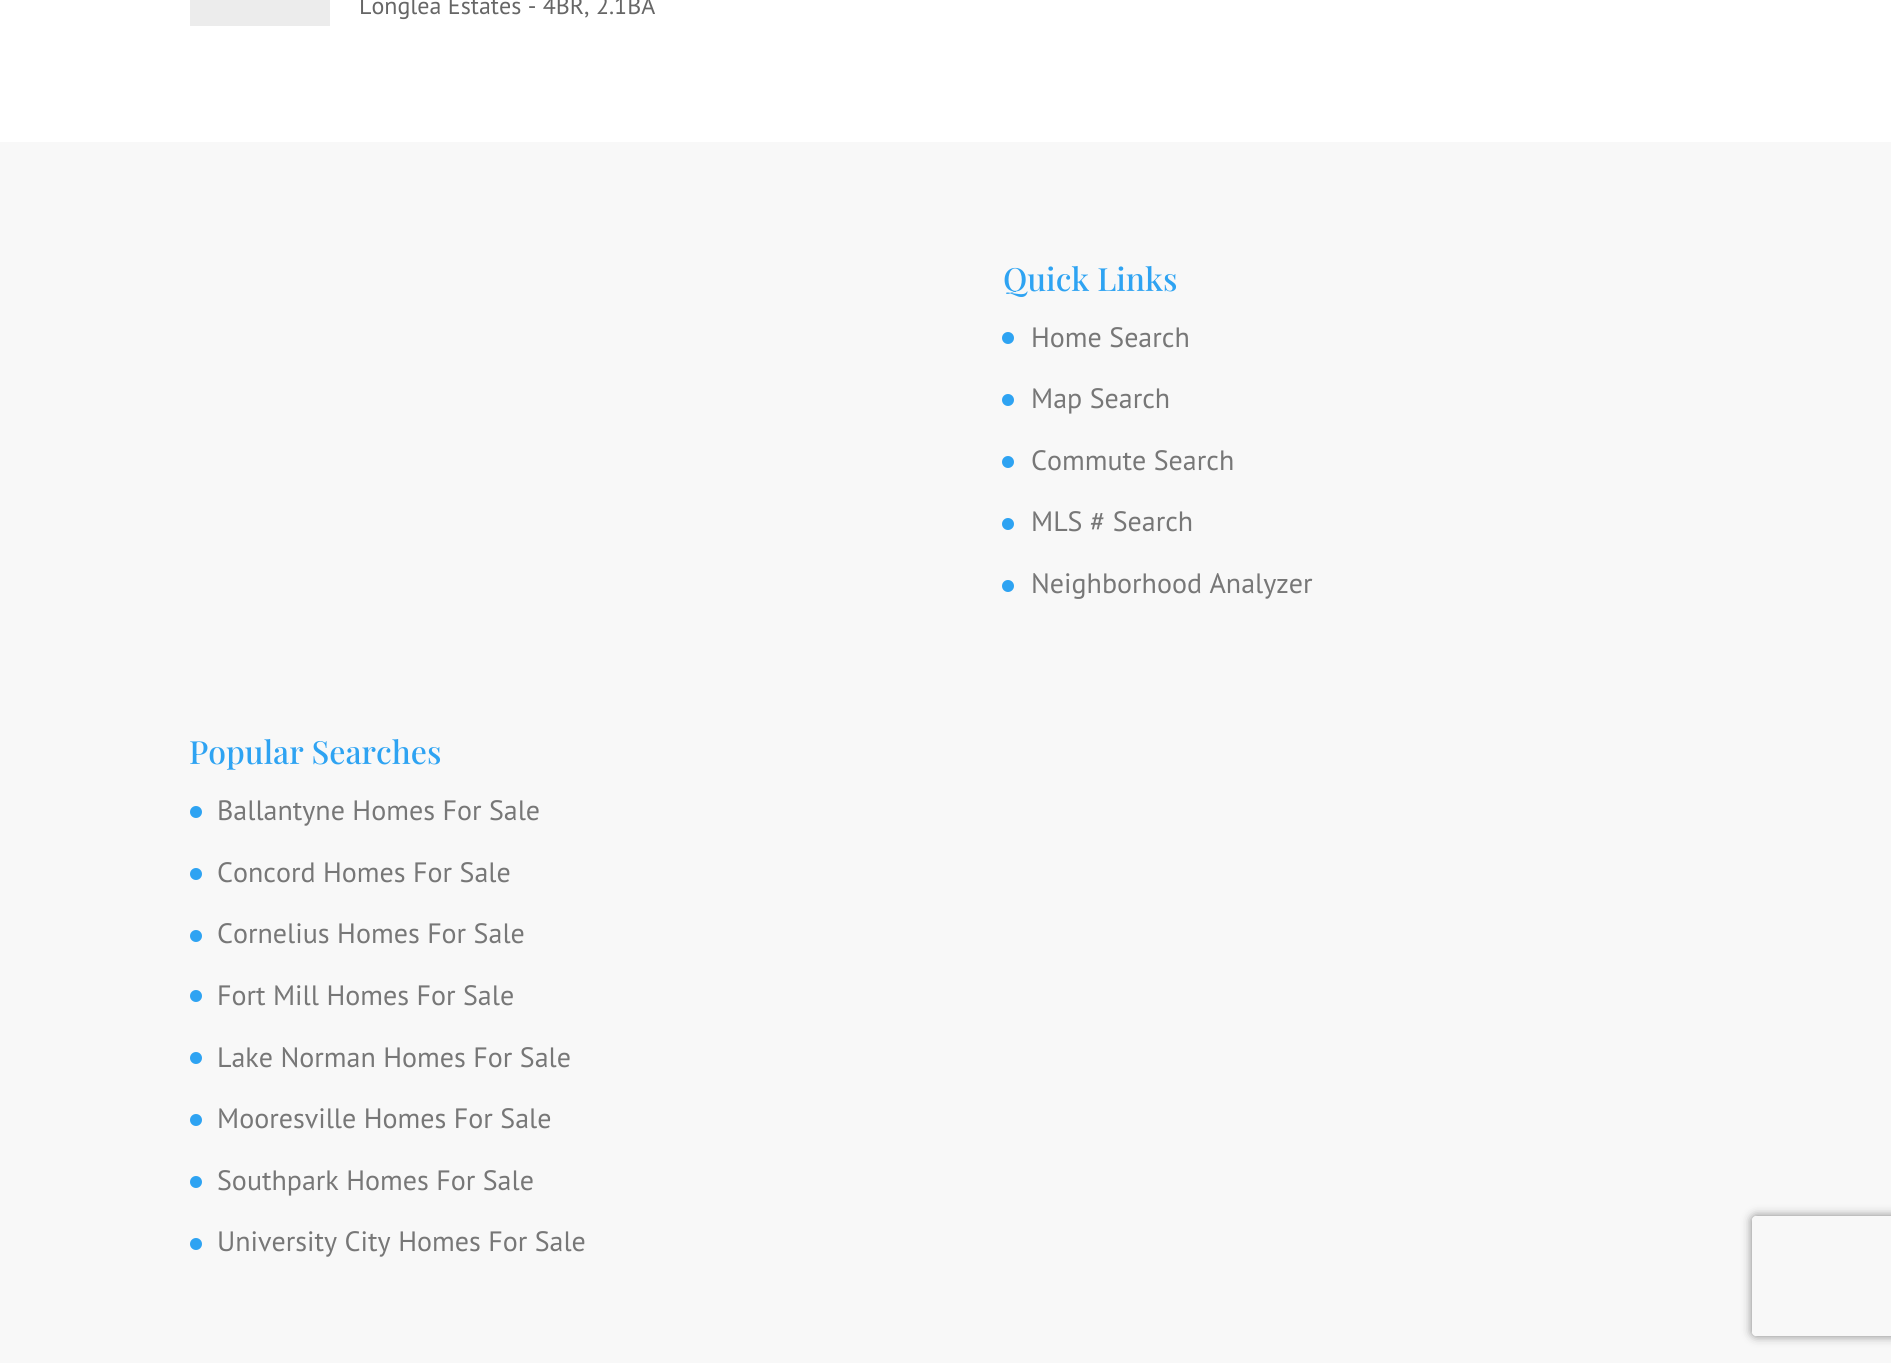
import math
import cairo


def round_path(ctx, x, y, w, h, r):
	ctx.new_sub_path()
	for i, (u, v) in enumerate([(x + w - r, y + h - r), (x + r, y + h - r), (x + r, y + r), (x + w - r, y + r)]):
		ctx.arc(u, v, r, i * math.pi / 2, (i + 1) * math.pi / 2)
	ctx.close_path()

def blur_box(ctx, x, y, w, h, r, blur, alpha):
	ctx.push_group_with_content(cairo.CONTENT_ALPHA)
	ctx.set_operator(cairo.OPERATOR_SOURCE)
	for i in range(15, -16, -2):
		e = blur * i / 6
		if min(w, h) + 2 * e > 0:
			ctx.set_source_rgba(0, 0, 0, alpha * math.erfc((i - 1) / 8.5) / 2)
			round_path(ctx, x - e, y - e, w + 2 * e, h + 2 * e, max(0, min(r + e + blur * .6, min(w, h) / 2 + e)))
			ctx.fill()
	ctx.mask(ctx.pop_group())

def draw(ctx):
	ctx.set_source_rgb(1, 1, 1)
	ctx.paint()
	ctx.set_source_rgb(0.925, 0.925, 0.925)
	ctx.rectangle(190, 0, 140, 26)
	ctx.fill()
	ctx.select_font_face('PT Sans')
	ctx.set_font_size(24)
	ctx.set_source_rgb(0.4, 0.4, 0.4)
	ctx.move_to(359, 14)
	ctx.show_text('Longlea Estates - 4BR, 2.1BA')
	ctx.set_source_rgb(0.969, 0.969, 0.969)
	ctx.rectangle(0, 142, 1891, 1221)
	ctx.fill()
	ctx.select_font_face('Playfair Display Medium')
	ctx.set_font_size(32)
	ctx.set_source_rgb(0.18, 0.639, 0.949)
	ctx.move_to(1003, 291)
	ctx.show_text('Quick Links')
	ctx.new_path()
	ctx.arc(1008, 338, 6, 0, 2 * math.pi)
	ctx.fill()
	ctx.select_font_face('PT Sans')
	ctx.set_font_size(28)
	ctx.set_source_rgb(0.467, 0.467, 0.467)
	ctx.move_to(1031, 347)
	ctx.show_text('Home Search')
	ctx.set_source_rgb(0.18, 0.639, 0.949)
	ctx.new_path()
	ctx.arc(1008, 400, 6, 0, 2 * math.pi)
	ctx.fill()
	ctx.set_source_rgb(0.467, 0.467, 0.467)
	ctx.move_to(1031, 408)
	ctx.show_text('Map Search')
	ctx.set_source_rgb(0.18, 0.639, 0.949)
	ctx.new_path()
	ctx.arc(1008, 462, 6, 0, 2 * math.pi)
	ctx.fill()
	ctx.set_source_rgb(0.467, 0.467, 0.467)
	ctx.move_to(1031, 470)
	ctx.show_text('Commute Search')
	ctx.set_source_rgb(0.18, 0.639, 0.949)
	ctx.new_path()
	ctx.arc(1008, 524, 6, 0, 2 * math.pi)
	ctx.fill()
	ctx.set_source_rgb(0.467, 0.467, 0.467)
	ctx.move_to(1031, 531)
	ctx.show_text('MLS # Search')
	ctx.set_source_rgb(0.18, 0.639, 0.949)
	ctx.new_path()
	ctx.arc(1008, 586, 6, 0, 2 * math.pi)
	ctx.fill()
	ctx.set_source_rgb(0.467, 0.467, 0.467)
	ctx.move_to(1031, 593)
	ctx.show_text('Neighborhood Analyzer')
	ctx.select_font_face('Playfair Display Medium')
	ctx.set_font_size(32)
	ctx.set_source_rgb(0.18, 0.639, 0.949)
	ctx.move_to(189, 764)
	ctx.show_text('Popular Searches')
	ctx.new_path()
	ctx.arc(196, 812, 6, 0, 2 * math.pi)
	ctx.fill()
	ctx.select_font_face('PT Sans')
	ctx.set_font_size(28)
	ctx.set_source_rgb(0.467, 0.467, 0.467)
	ctx.move_to(217, 820)
	ctx.show_text('Ballantyne Homes For Sale')
	ctx.set_source_rgb(0.18, 0.639, 0.949)
	ctx.new_path()
	ctx.arc(196, 874, 6, 0, 2 * math.pi)
	ctx.fill()
	ctx.set_source_rgb(0.467, 0.467, 0.467)
	ctx.move_to(217, 882)
	ctx.show_text('Concord Homes For Sale')
	ctx.set_source_rgb(0.18, 0.639, 0.949)
	ctx.new_path()
	ctx.arc(196, 936, 6, 0, 2 * math.pi)
	ctx.fill()
	ctx.set_source_rgb(0.467, 0.467, 0.467)
	ctx.move_to(217, 943)
	ctx.show_text('Cornelius Homes For Sale')
	ctx.set_source_rgb(0.18, 0.639, 0.949)
	ctx.new_path()
	ctx.arc(196, 996, 6, 0, 2 * math.pi)
	ctx.fill()
	ctx.set_source_rgb(0.467, 0.467, 0.467)
	ctx.move_to(217, 1005)
	ctx.show_text('Fort Mill Homes For Sale')
	ctx.set_source_rgb(0.18, 0.639, 0.949)
	ctx.new_path()
	ctx.arc(196, 1058, 6, 0, 2 * math.pi)
	ctx.fill()
	ctx.set_source_rgb(0.467, 0.467, 0.467)
	ctx.move_to(217, 1067)
	ctx.show_text('Lake Norman Homes For Sale')
	ctx.set_source_rgb(0.18, 0.639, 0.949)
	ctx.new_path()
	ctx.arc(196, 1120, 6, 0, 2 * math.pi)
	ctx.fill()
	ctx.set_source_rgb(0.467, 0.467, 0.467)
	ctx.move_to(217, 1128)
	ctx.show_text('Mooresville Homes For Sale')
	ctx.set_source_rgb(0.18, 0.639, 0.949)
	ctx.new_path()
	ctx.arc(196, 1182, 6, 0, 2 * math.pi)
	ctx.fill()
	ctx.set_source_rgb(0.467, 0.467, 0.467)
	ctx.move_to(217, 1190)
	ctx.show_text('Southpark Homes For Sale')
	ctx.set_source_rgb(0.18, 0.639, 0.949)
	ctx.new_path()
	ctx.arc(196, 1244, 6, 0, 2 * math.pi)
	ctx.fill()
	ctx.set_source_rgb(0.467, 0.467, 0.467)
	ctx.move_to(217, 1251)
	ctx.show_text('University City Homes For Sale')
	ctx.save()
	ctx.set_fill_rule(cairo.FILL_RULE_EVEN_ODD)
	ctx.new_path()
	ctx.move_to(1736, 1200)
	ctx.line_to(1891, 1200)
	ctx.line_to(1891, 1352)
	ctx.line_to(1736, 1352)
	ctx.close_path()
	ctx.move_to(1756, 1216)
	ctx.line_to(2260, 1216)
	ctx.curve_to(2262, 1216, 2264, 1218, 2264, 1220)
	ctx.line_to(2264, 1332)
	ctx.curve_to(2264, 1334, 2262, 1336, 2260, 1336)
	ctx.line_to(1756, 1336)
	ctx.curve_to(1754, 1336, 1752, 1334, 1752, 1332)
	ctx.line_to(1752, 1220)
	ctx.curve_to(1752, 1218, 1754, 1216, 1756, 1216)
	ctx.close_path()
	ctx.clip()
	ctx.set_source_rgb(0.502, 0.502, 0.502)
	blur_box(ctx, 1752, 1216, 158, 120, 4, 5, 1)
	ctx.restore()


surface = cairo.ImageSurface(cairo.FORMAT_RGB24, 1891, 1363)
ctx = cairo.Context(surface)
options = cairo.FontOptions()
options.set_hint_metrics(cairo.HINT_METRICS_OFF)
options.set_hint_style(cairo.HINT_STYLE_NONE)
ctx.set_font_options(options)
ctx.set_miter_limit(4)
draw(ctx)
surface.write_to_png('image.png')
